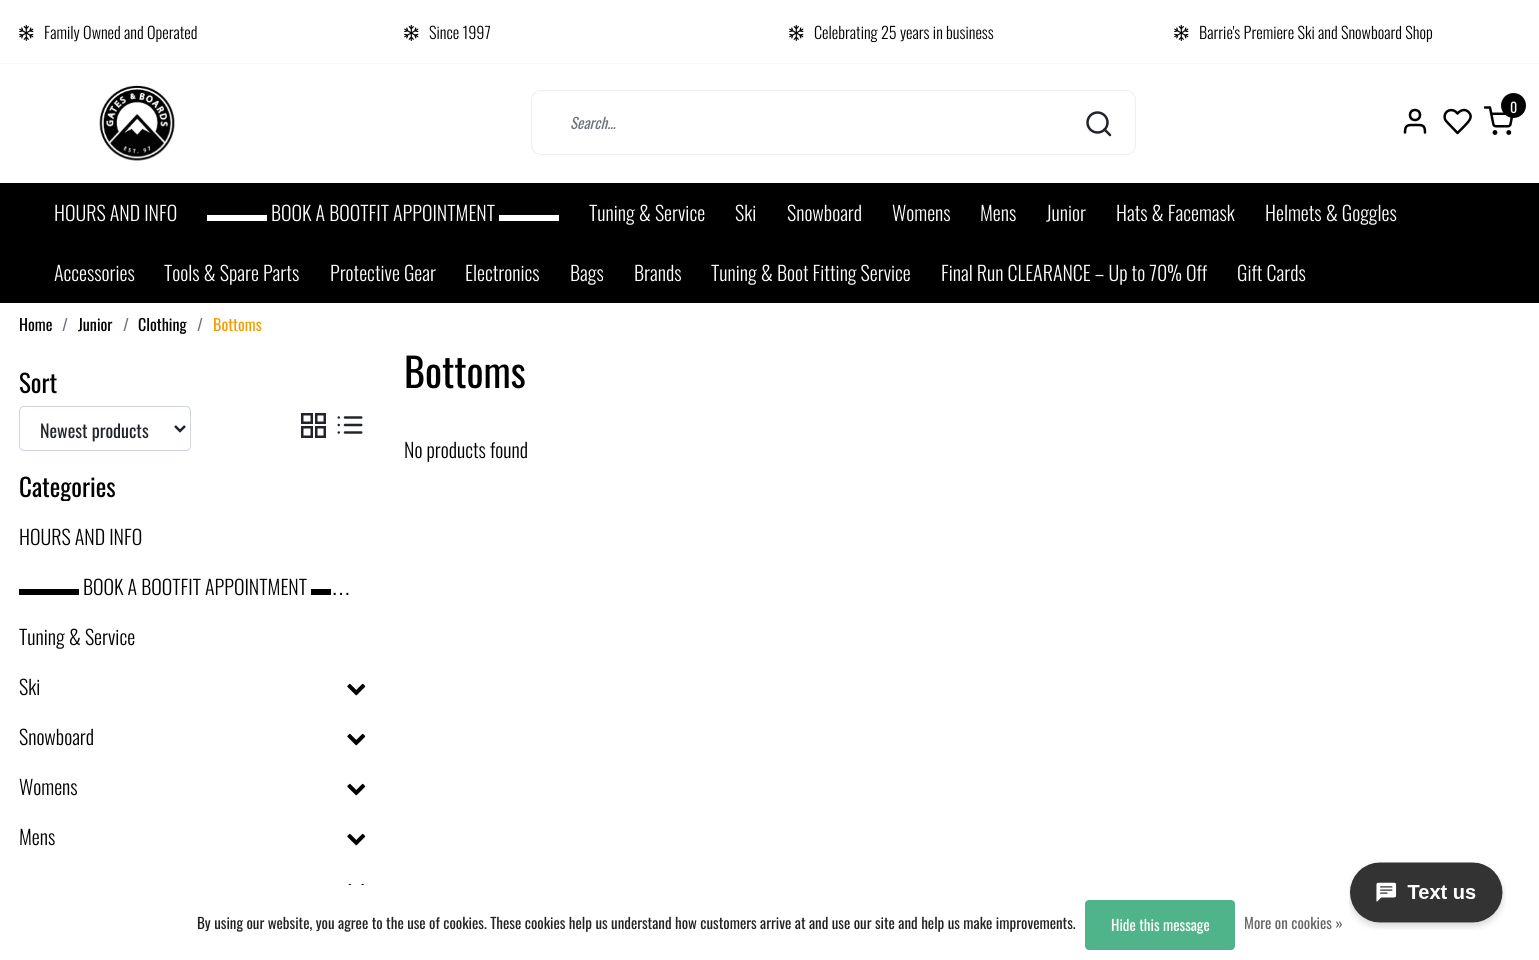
import math
import cairo


def round_path(ctx, x, y, w, h, r):
	ctx.new_sub_path()
	for i, (u, v) in enumerate([(x + w - r, y + h - r), (x + r, y + h - r), (x + r, y + r), (x + w - r, y + r)]):
		ctx.arc(u, v, r, i * math.pi / 2, (i + 1) * math.pi / 2)
	ctx.close_path()

def paste(ctx, path, x, y, w, h):
	ctx.save()
	ctx.set_source_surface(cairo.ImageSurface.create_from_png(path), x, y)
	ctx.rectangle(x, y, w, h)
	ctx.fill()
	ctx.restore()

def draw(ctx):
	ctx.set_source_rgb(1, 1, 1)
	ctx.paint()
	ctx.set_source_rgb(0.969, 0.969, 0.969)
	ctx.rectangle(0, 63, 1539, 1)
	ctx.fill()
	paste(ctx, 'media/1.png', 19, 24, 15, 17)
	ctx.select_font_face('Oswald Light')
	ctx.set_font_size(16.25)
	ctx.set_source_rgb(0, 0, 0)
	ctx.move_to(44, 39)
	ctx.show_text('Family Owned and Operated')
	paste(ctx, 'media/1.png', 404, 24, 15, 17)
	ctx.move_to(429, 39)
	ctx.show_text('Since 1997')
	paste(ctx, 'media/1.png', 789, 24, 15, 17)
	ctx.move_to(814, 39)
	ctx.show_text('Celebrating 25 years in business')
	paste(ctx, 'media/1.png', 1174, 24, 15, 17)
	ctx.move_to(1199, 39)
	ctx.show_text('Barrie\'s Premiere Ski and Snowboard Shop')
	paste(ctx, 'media/2.png', 99, 85, 76, 76)
	ctx.new_path()
	ctx.move_to(1425, 132.5)
	ctx.curve_to(1425, 124.5, 1422, 125, 1415, 125)
	ctx.curve_to(1408, 125, 1405, 124.5, 1405, 132.5)
	ctx.set_line_width(2.5)
	ctx.set_line_cap(cairo.LINE_CAP_ROUND)
	ctx.set_line_join(cairo.LINE_JOIN_ROUND)
	ctx.stroke()
	ctx.arc(1415, 115, 5, 0, 2 * math.pi)
	ctx.set_line_cap(cairo.LINE_CAP_BUTT)
	ctx.set_line_join(cairo.LINE_JOIN_MITER)
	ctx.stroke()
	ctx.new_path()
	ctx.move_to(1468.5, 112)
	ctx.curve_to(1465, 108.5, 1460.5, 110, 1457.5, 113.5)
	ctx.line_to(1456, 112)
	ctx.curve_to(1453.5, 109.5, 1449, 109.5, 1446.5, 112)
	ctx.curve_to(1444, 114.5, 1444, 119, 1446.5, 121.5)
	ctx.line_to(1457.5, 133)
	ctx.line_to(1464, 126.5)
	ctx.curve_to(1467.5, 122.5, 1474, 117.5, 1468.5, 112)
	ctx.close_path()
	ctx.set_line_cap(cairo.LINE_CAP_ROUND)
	ctx.set_line_join(cairo.LINE_JOIN_ROUND)
	ctx.stroke()
	paste(ctx, 'media/3.png', 1484, 106, 30, 29)
	ctx.arc(1513.5, 105.5, 12.5, 0, 2 * math.pi)
	ctx.fill()
	ctx.select_font_face('Oswald')
	ctx.set_font_size(14)
	ctx.set_source_rgb(1, 1, 1)
	ctx.move_to(1510, 113)
	ctx.show_text('0')
	round_path(ctx, 531.5, 90.5, 604, 64, 9.5)
	ctx.set_source_rgb(0.933, 0.933, 0.933)
	ctx.set_line_width(1)
	ctx.set_line_cap(cairo.LINE_CAP_BUTT)
	ctx.set_line_join(cairo.LINE_JOIN_MITER)
	ctx.stroke()
	ctx.select_font_face('Oswald', cairo.FONT_SLANT_ITALIC)
	ctx.set_font_size(15)
	ctx.set_source_rgb(0.424, 0.459, 0.49)
	ctx.move_to(570, 129)
	ctx.show_text('Search...')
	ctx.new_path()
	ctx.arc(1097.5, 122.5, 10, 0, 2 * math.pi)
	ctx.set_source_rgb(0.129, 0.145, 0.161)
	ctx.set_line_width(2.5)
	ctx.stroke()
	ctx.new_path()
	ctx.move_to(1110, 135)
	ctx.line_to(1104.5, 129.5)
	ctx.set_line_cap(cairo.LINE_CAP_ROUND)
	ctx.set_line_join(cairo.LINE_JOIN_ROUND)
	ctx.stroke()
	ctx.set_source_rgb(0, 0, 0)
	ctx.rectangle(0, 183, 1539, 120)
	ctx.fill()
	ctx.select_font_face('Oswald Light')
	ctx.set_font_size(20)
	ctx.set_source_rgb(1, 1, 1)
	ctx.move_to(54, 221)
	ctx.show_text('HOURS AND INFO')
	ctx.select_font_face('Liberation Sans')
	ctx.move_to(207, 221)
	ctx.show_text('▬▬▬')
	ctx.select_font_face('Oswald Light')
	ctx.move_to(271, 221)
	ctx.show_text('BOOK A BOOTFIT APPOINTMENT')
	ctx.select_font_face('Liberation Sans')
	ctx.move_to(499, 221)
	ctx.show_text('▬▬▬')
	ctx.select_font_face('Oswald Light')
	for x, y, s in [
		(589, 221, 'Tuning & Service'),
		(735, 221, 'Ski'),
		(787, 221, 'Snowboard'),
		(892, 221, 'Womens'),
		(980, 221, 'Mens'),
		(1046, 221, 'Junior'),
		(1116, 221, 'Hats & Facemask'),
		(1265, 221, 'Helmets & Goggles'),
		(54, 281, 'Accessories'),
		(164, 281, 'Tools & Spare Parts'),
		(330, 281, 'Protective Gear'),
		(465, 281, 'Electronics'),
		(570, 281, 'Bags'),
		(634, 281, 'Brands'),
		(711, 281, 'Tuning & Boot Fitting Service'),
		(941, 281, 'Final Run CLEARANCE – Up to 70% Off'),
		(1237, 281, 'Gift Cards'),
	]:
		ctx.move_to(x, y)
		ctx.show_text(s)
	ctx.select_font_face('Oswald')
	ctx.set_font_size(16)
	ctx.set_source_rgb(0, 0, 0)
	ctx.move_to(19, 331)
	ctx.show_text('Home')
	ctx.set_source_rgb(0.424, 0.459, 0.49)
	ctx.move_to(62, 331)
	ctx.show_text('/')
	ctx.set_source_rgb(0, 0, 0)
	ctx.move_to(78, 331)
	ctx.show_text('Junior')
	ctx.set_source_rgb(0.424, 0.459, 0.49)
	ctx.move_to(123, 331)
	ctx.show_text('/')
	ctx.set_source_rgb(0, 0, 0)
	ctx.move_to(138, 331)
	ctx.show_text('Clothing')
	ctx.set_source_rgb(0.424, 0.459, 0.49)
	ctx.move_to(197, 331)
	ctx.show_text('/')
	ctx.set_source_rgb(0.957, 0.616, 0)
	ctx.move_to(213, 331)
	ctx.show_text('Bottoms')
	ctx.set_font_size(25)
	ctx.set_source_rgb(0, 0, 0)
	ctx.move_to(19, 393)
	ctx.show_text('Sort')
	round_path(ctx, 19.5, 406.5, 171, 44, 4.5)
	ctx.set_source_rgb(0.808, 0.831, 0.855)
	ctx.set_line_width(1)
	ctx.set_line_cap(cairo.LINE_CAP_BUTT)
	ctx.set_line_join(cairo.LINE_JOIN_MITER)
	ctx.stroke()
	ctx.new_path()
	ctx.move_to(175, 426)
	ctx.line_to(180, 431)
	ctx.line_to(185, 426)
	ctx.set_source_rgb(0.129, 0.145, 0.161)
	ctx.set_line_width(2.5)
	ctx.stroke()
	ctx.set_font_size(18)
	ctx.move_to(40, 438)
	ctx.show_text('Newest products')
	ctx.rectangle(302.25, 414.25, 9.5, 8.5)
	ctx.stroke()
	ctx.rectangle(316.25, 414.25, 8.5, 8.5)
	ctx.stroke()
	ctx.rectangle(316.25, 427.25, 8.5, 9.5)
	ctx.stroke()
	ctx.rectangle(302.25, 427.25, 9.5, 9.5)
	ctx.stroke()
	paste(ctx, 'media/4.png', 337, 416, 26, 18)
	ctx.save()
	ctx.rectangle(19, 471, 347, 30)
	ctx.clip()
	ctx.set_font_size(25)
	ctx.set_source_rgb(0, 0, 0)
	ctx.move_to(19, 497)
	ctx.show_text('Categories')
	ctx.restore()
	ctx.select_font_face('Oswald Light')
	ctx.set_font_size(20)
	ctx.set_source_rgb(0, 0, 0)
	ctx.move_to(19, 545)
	ctx.show_text('HOURS AND INFO')
	ctx.save()
	ctx.rectangle(19, 561, 347, 50)
	ctx.clip()
	ctx.select_font_face('Liberation Sans')
	ctx.move_to(19, 595)
	ctx.show_text('▬▬▬')
	ctx.restore()
	ctx.move_to(83, 595)
	ctx.show_text('BOOK A BOOTFIT APPOINTMENT')
	ctx.select_font_face('Liberation Sans')
	ctx.move_to(311, 595)
	ctx.show_text('▬…')
	ctx.select_font_face('Oswald Light')
	ctx.move_to(19, 645)
	ctx.show_text('Tuning & Service')
	ctx.move_to(19, 695)
	ctx.show_text('Ski')
	paste(ctx, 'media/5.png', 347, 683, 19, 13)
	ctx.move_to(19, 745)
	ctx.show_text('Snowboard')
	paste(ctx, 'media/5.png', 347, 733, 19, 13)
	ctx.move_to(19, 795)
	ctx.show_text('Womens')
	paste(ctx, 'media/5.png', 347, 783, 19, 13)
	ctx.move_to(19, 845)
	ctx.show_text('Mens')
	paste(ctx, 'media/5.png', 347, 833, 19, 13)
	paste(ctx, 'media/6.png', 348, 883, 16, 2)
	ctx.select_font_face('Oswald')
	ctx.set_font_size(40)
	ctx.move_to(404, 388)
	ctx.show_text('Bottoms')
	ctx.select_font_face('Oswald Light')
	ctx.set_font_size(20)
	ctx.move_to(404, 458)
	ctx.show_text('No products found')
	ctx.select_font_face('Oswald')
	ctx.set_font_size(15)
	ctx.set_source_rgb(0.133, 0.133, 0.133)
	ctx.move_to(197, 929)
	ctx.show_text('By using our website, you agree to the use of cookies. These cookies help us understand how customers arrive at and use our site and help us make improvements.')
	ctx.set_source_rgb(0.314, 0.706, 0.541)
	round_path(ctx, 1085, 900, 150, 50, 4)
	ctx.fill()
	ctx.set_source_rgb(1, 1, 1)
	ctx.move_to(1111, 931)
	ctx.show_text('Hide this message')
	ctx.set_source_rgb(0.4, 0.4, 0.4)
	ctx.move_to(1244, 929)
	ctx.show_text('More on cookies »')
	paste(ctx, 'media/7.png', 1349, 862, 157, 68)


surface = cairo.ImageSurface(cairo.FORMAT_RGB24, 1539, 960)
ctx = cairo.Context(surface)
options = cairo.FontOptions()
options.set_hint_metrics(cairo.HINT_METRICS_OFF)
options.set_hint_style(cairo.HINT_STYLE_NONE)
ctx.set_font_options(options)
ctx.set_miter_limit(4)
draw(ctx)
surface.write_to_png('image.png')
